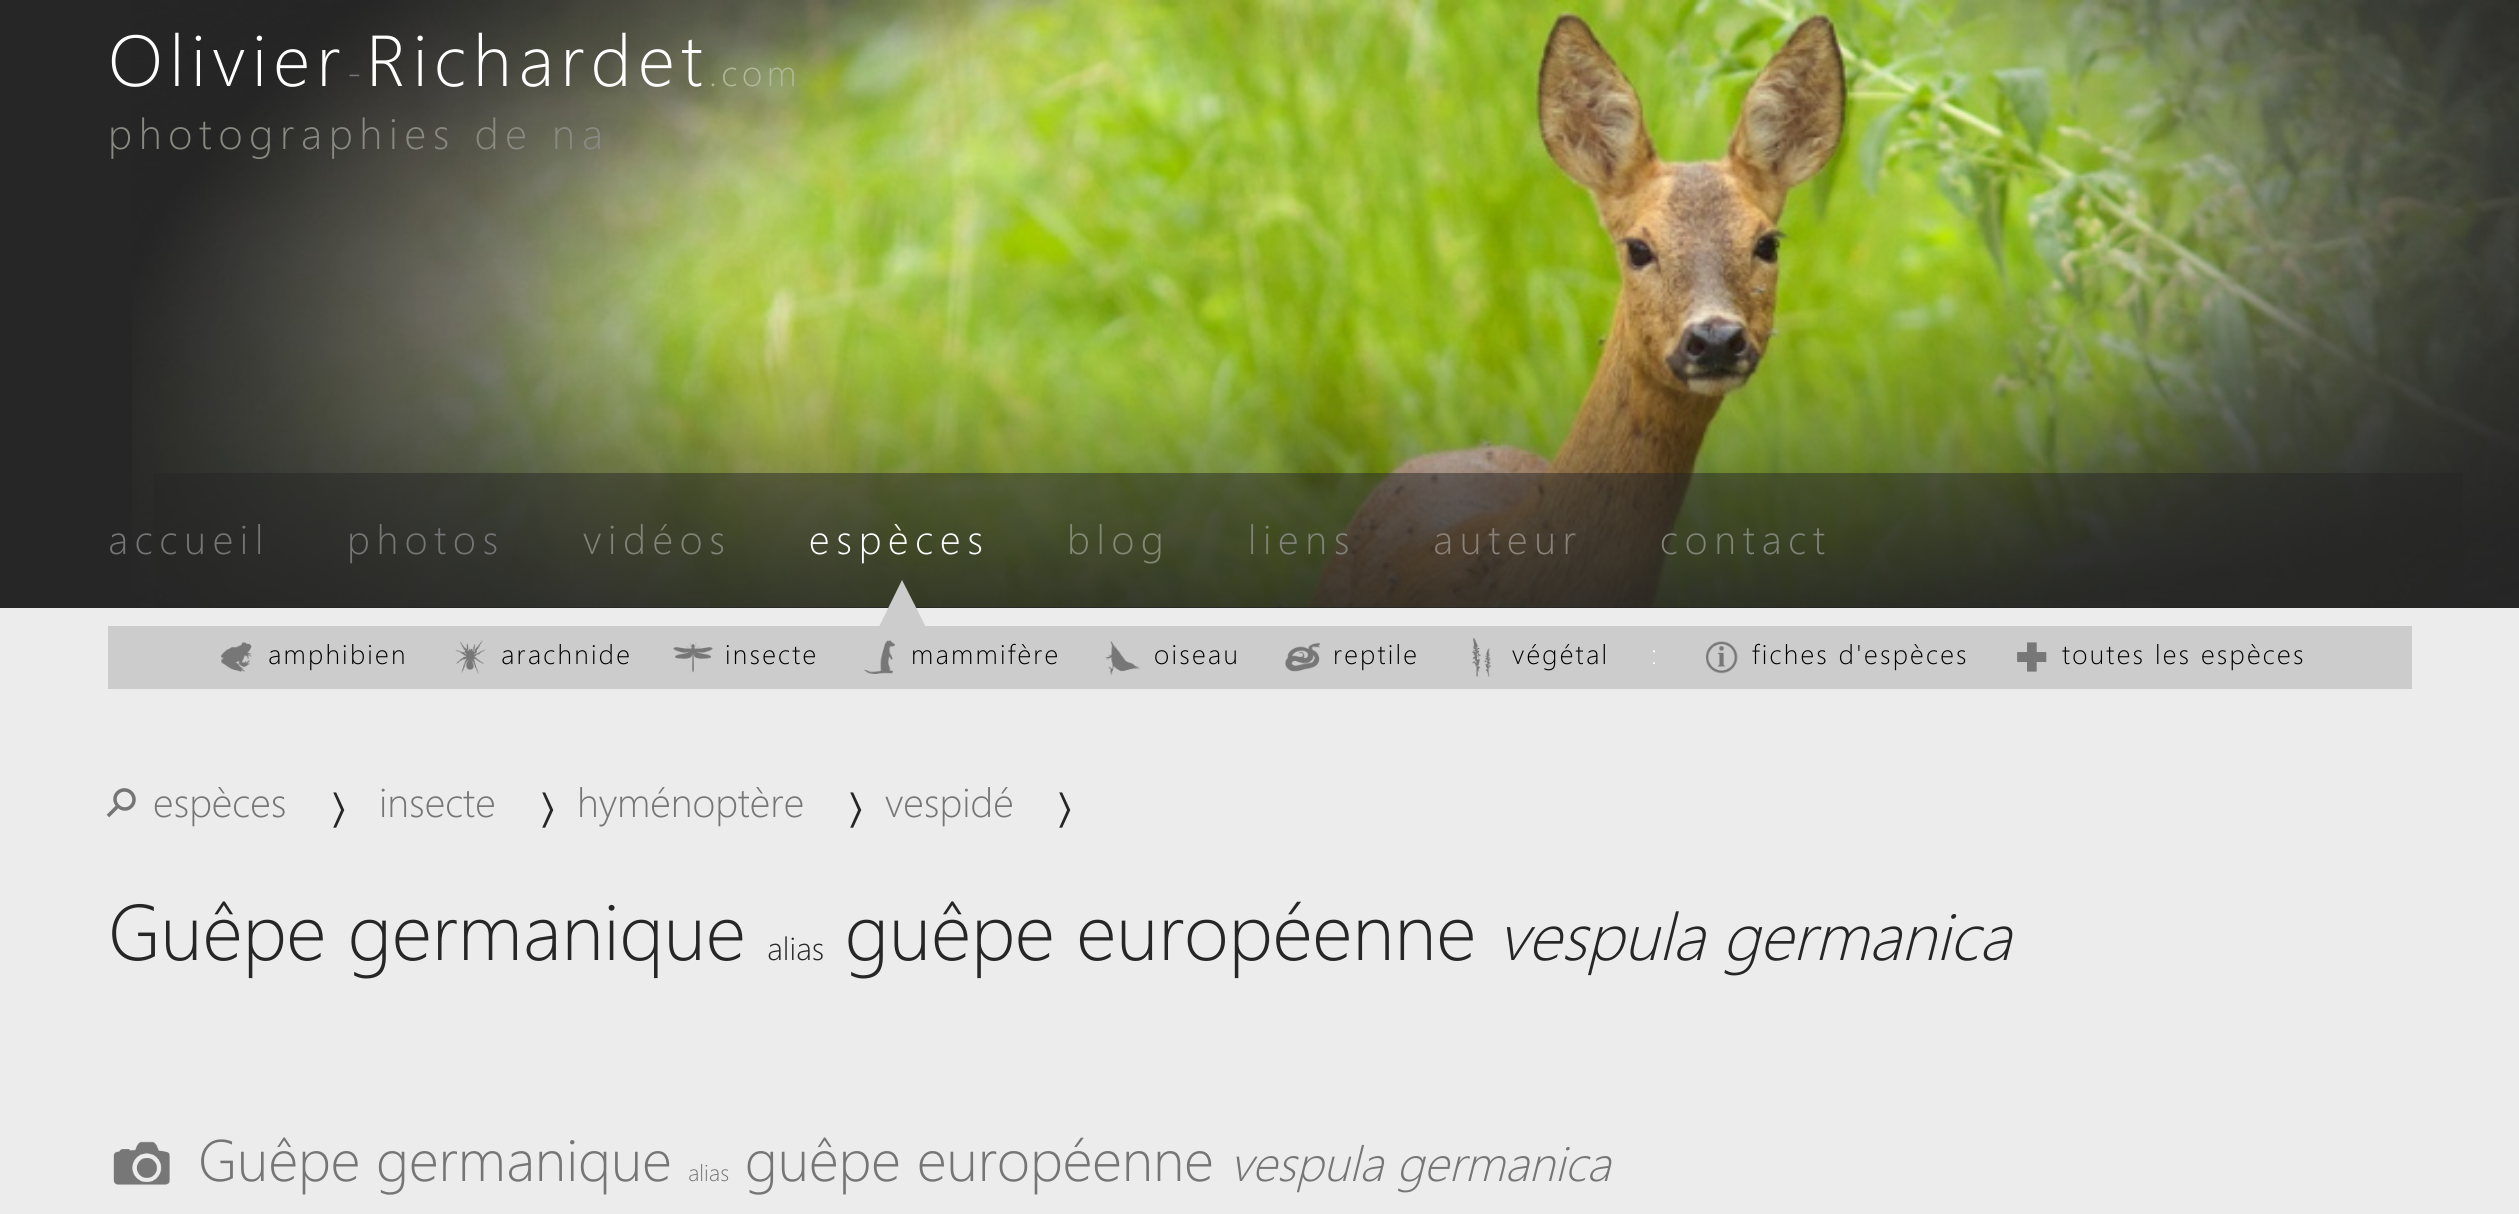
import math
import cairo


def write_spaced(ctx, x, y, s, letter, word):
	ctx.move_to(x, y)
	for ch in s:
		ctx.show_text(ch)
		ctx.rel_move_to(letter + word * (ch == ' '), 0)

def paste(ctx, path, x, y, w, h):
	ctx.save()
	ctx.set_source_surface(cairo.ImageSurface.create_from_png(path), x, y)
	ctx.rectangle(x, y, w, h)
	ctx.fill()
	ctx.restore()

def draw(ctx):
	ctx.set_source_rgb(0.925, 0.925, 0.925)
	ctx.paint()
	ctx.set_source_rgb(0.149, 0.149, 0.149)
	ctx.rectangle(0, 0, 2519, 608)
	ctx.fill()
	paste(ctx, 'media/1.png', 132, 0, 2387, 608)
	ctx.select_font_face('Segoe UI Light')
	ctx.set_font_size(72)
	ctx.set_source_rgb(1, 1, 1)
	write_spaced(ctx, 108, 86, 'Olivier', 6.75, 0)
	ctx.set_font_size(36)
	ctx.set_source_rgb(0.459, 0.459, 0.459)
	write_spaced(ctx, 347, 86, '-', 4.5, 0)
	ctx.set_font_size(72)
	ctx.set_source_rgb(1, 1, 1)
	write_spaced(ctx, 366, 86, 'Richardet', 6.75, 0)
	ctx.set_font_size(36)
	ctx.set_source_rgb(0.694, 0.722, 0.6)
	write_spaced(ctx, 709, 86, '.com', 4.5, 0)
	ctx.set_font_size(42.75)
	ctx.set_source_rgb(0.537, 0.537, 0.51)
	write_spaced(ctx, 108, 149, 'photographies de na', 6.75, 0)
	ctx.set_source_rgba(0.149, 0.149, 0.149, 0.5)
	ctx.rectangle(154, 473, 2309, 135)
	ctx.fill()
	ctx.set_font_size(40.5)
	ctx.set_source_rgb(0.459, 0.459, 0.459)
	write_spaced(ctx, 108, 554, 'accueil', 6.75, 0)
	write_spaced(ctx, 347, 554, 'photos', 6.75, 0)
	ctx.set_source_rgb(0.506, 0.514, 0.467)
	write_spaced(ctx, 583, 554, 'vidéos', 6.75, 0)
	ctx.set_source_rgb(1, 1, 1)
	write_spaced(ctx, 809, 554, 'espèces', 6.75, 0)
	ctx.set_source_rgb(0.8, 0.8, 0.8)
	ctx.rectangle(108, 626, 2304, 63)
	ctx.fill()
	ctx.new_path()
	ctx.move_to(932, 639)
	ctx.line_to(873, 639)
	ctx.line_to(902, 580)
	ctx.close_path()
	ctx.fill()
	ctx.set_source_rgb(0.518, 0.537, 0.459)
	write_spaced(ctx, 1067, 554, 'blog', 6.75, 0)
	ctx.set_source_rgb(0.506, 0.514, 0.467)
	write_spaced(ctx, 1248, 554, 'liens', 6.75, 0)
	ctx.set_source_rgb(0.537, 0.506, 0.471)
	write_spaced(ctx, 1433, 554, 'auteur', 6.75, 0)
	ctx.set_source_rgb(0.506, 0.514, 0.467)
	write_spaced(ctx, 1660, 554, 'contact', 6.75, 0)
	paste(ctx, 'media/2.png', 221, 642, 31, 30)
	ctx.set_font_size(27)
	ctx.set_source_rgb(0, 0, 0)
	write_spaced(ctx, 268, 664, 'amphibien', 2.25, 0)
	paste(ctx, 'media/3.png', 455, 640, 31, 34)
	write_spaced(ctx, 501, 664, 'arachnide', 2.25, 0)
	paste(ctx, 'media/4.png', 673, 642, 40, 31)
	write_spaced(ctx, 725, 664, 'insecte', 2.25, 0)
	paste(ctx, 'media/5.png', 864, 640, 31, 34)
	write_spaced(ctx, 911, 664, 'mammifère', 2.25, 0)
	paste(ctx, 'media/6.png', 1105, 641, 35, 34)
	write_spaced(ctx, 1154, 664, 'oiseau', 2.25, 0)
	paste(ctx, 'media/7.png', 1285, 643, 35, 29)
	write_spaced(ctx, 1333, 664, 'reptile', 2.25, 0)
	paste(ctx, 'media/8.png', 1471, 637, 20, 40)
	write_spaced(ctx, 1512, 664, 'végétal', 2.25, 0)
	ctx.set_source_rgb(1, 1, 1)
	write_spaced(ctx, 1651, 664, ':', 2.25, 0)
	paste(ctx, 'media/9.png', 1706, 641, 32, 33)
	ctx.set_source_rgb(0, 0, 0)
	write_spaced(ctx, 1752, 664, 'fiches d\'espèces', 2.25, 0)
	paste(ctx, 'media/10.png', 2017, 642, 30, 30)
	write_spaced(ctx, 2062, 664, 'toutes les espèces', 2.25, 0)
	ctx.select_font_face('DejaVu Sans')
	ctx.set_font_size(40.5)
	ctx.set_source_rgb(0.459, 0.459, 0.459)
	ctx.save()
	ctx.translate(101, 802)
	ctx.rotate(45 * math.pi / 180)
	ctx.move_to(0, 0)
	ctx.show_text('⚲')
	ctx.restore()
	ctx.select_font_face('Segoe UI Light')
	ctx.move_to(153, 817)
	ctx.show_text('espèces')
	ctx.select_font_face('FreeSans')
	ctx.set_source_rgb(0.149, 0.149, 0.149)
	ctx.move_to(332, 822)
	ctx.show_text('〉')
	ctx.select_font_face('Segoe UI Light')
	ctx.set_source_rgb(0.459, 0.459, 0.459)
	ctx.move_to(379, 817)
	ctx.show_text('insecte')
	ctx.select_font_face('FreeSans')
	ctx.set_source_rgb(0.149, 0.149, 0.149)
	ctx.move_to(541, 822)
	ctx.show_text('〉')
	ctx.select_font_face('Segoe UI Light')
	ctx.set_source_rgb(0.459, 0.459, 0.459)
	ctx.move_to(577, 817)
	ctx.show_text('hyménoptère')
	ctx.select_font_face('FreeSans')
	ctx.set_source_rgb(0.149, 0.149, 0.149)
	ctx.move_to(849, 822)
	ctx.show_text('〉')
	ctx.select_font_face('Segoe UI Light')
	ctx.set_source_rgb(0.459, 0.459, 0.459)
	ctx.move_to(885, 817)
	ctx.show_text('vespidé')
	ctx.select_font_face('FreeSans')
	ctx.set_source_rgb(0.149, 0.149, 0.149)
	ctx.move_to(1058, 822)
	ctx.show_text('〉')
	ctx.select_font_face('Segoe UI Light')
	ctx.set_font_size(78.75)
	ctx.move_to(108, 960)
	ctx.show_text('Guêpe germanique')
	ctx.set_font_size(32)
	ctx.move_to(767, 960)
	ctx.show_text('alias')
	ctx.set_font_size(78.75)
	ctx.move_to(845, 960)
	ctx.show_text('guêpe européenne')
	ctx.select_font_face('Segoe UI Light', cairo.FONT_SLANT_ITALIC)
	ctx.set_font_size(65.75)
	ctx.move_to(1498, 960)
	ctx.show_text('vespula germanica')
	paste(ctx, 'media/11.png', 113, 1141, 57, 44)
	ctx.select_font_face('Segoe UI Light')
	ctx.set_font_size(58.5)
	ctx.set_source_rgb(0.459, 0.459, 0.459)
	ctx.move_to(198, 1181)
	ctx.show_text('Guêpe germanique')
	ctx.set_font_size(23)
	ctx.move_to(688, 1181)
	ctx.show_text('alias')
	ctx.set_font_size(58.5)
	ctx.move_to(745, 1181)
	ctx.show_text('guêpe européenne')
	ctx.select_font_face('Segoe UI Light', cairo.FONT_SLANT_ITALIC)
	ctx.set_font_size(48.75)
	ctx.move_to(1230, 1181)
	ctx.show_text('vespula germanica')


surface = cairo.ImageSurface(cairo.FORMAT_RGB24, 2519, 1214)
ctx = cairo.Context(surface)
options = cairo.FontOptions()
options.set_hint_metrics(cairo.HINT_METRICS_OFF)
options.set_hint_style(cairo.HINT_STYLE_NONE)
ctx.set_font_options(options)
ctx.set_miter_limit(4)
draw(ctx)
surface.write_to_png('image.png')
